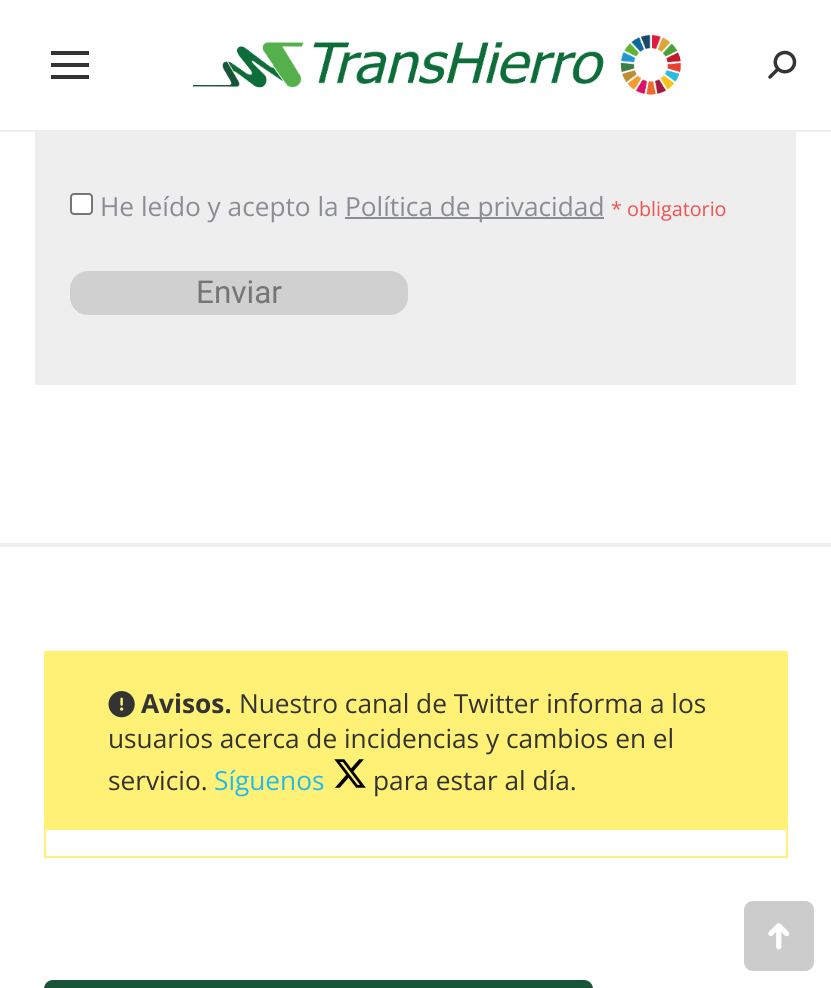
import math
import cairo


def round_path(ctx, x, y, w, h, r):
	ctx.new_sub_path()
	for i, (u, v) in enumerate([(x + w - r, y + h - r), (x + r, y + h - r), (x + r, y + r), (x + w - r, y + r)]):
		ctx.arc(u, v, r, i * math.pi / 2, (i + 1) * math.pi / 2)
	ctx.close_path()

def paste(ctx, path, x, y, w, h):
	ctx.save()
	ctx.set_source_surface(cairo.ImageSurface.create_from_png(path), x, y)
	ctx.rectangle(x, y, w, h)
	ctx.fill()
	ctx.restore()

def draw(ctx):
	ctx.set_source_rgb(1, 1, 1)
	ctx.paint()
	ctx.set_source_rgb(0.933, 0.933, 0.933)
	ctx.rectangle(0, 130, 831, 2)
	ctx.fill()
	ctx.set_source_rgb(0.2, 0.2, 0.2)
	ctx.rectangle(51, 51, 38, 4)
	ctx.rectangle(51, 63, 38, 4)
	ctx.rectangle(51, 75, 38, 4)
	ctx.fill()
	paste(ctx, 'media/1.png', 193, 35, 488, 60)
	paste(ctx, 'media/2.png', 768, 50, 29, 29)
	ctx.set_source_rgb(0.933, 0.933, 0.933)
	ctx.rectangle(35, 132, 761, 253)
	ctx.fill()
	ctx.set_source_rgb(1, 1, 1)
	round_path(ctx, 71, 194, 21, 20, 3)
	ctx.fill_preserve()
	ctx.set_source_rgb(0.463, 0.463, 0.463)
	ctx.stroke()
	ctx.select_font_face('Open Sans')
	ctx.set_font_size(26.25)
	ctx.set_source_rgb(0.545, 0.553, 0.58)
	ctx.move_to(100, 216)
	ctx.show_text('He leído y acepto la')
	ctx.rectangle(345, 217, 259, 2)
	ctx.fill()
	ctx.move_to(345, 216)
	ctx.show_text('Política de privacidad')
	ctx.set_font_size(19.75)
	ctx.set_source_rgb(0.937, 0.325, 0.314)
	ctx.move_to(611, 216)
	ctx.show_text('* obligatorio')
	ctx.set_source_rgb(0.816, 0.816, 0.816)
	round_path(ctx, 70, 271, 338, 44, 18)
	ctx.fill()
	ctx.select_font_face('Roboto')
	ctx.set_font_size(31.5)
	ctx.set_source_rgb(0.459, 0.459, 0.459)
	ctx.move_to(196, 303)
	ctx.show_text('Enviar')
	ctx.set_source_rgb(0.933, 0.933, 0.933)
	ctx.rectangle(0, 543, 831, 4)
	ctx.fill()
	ctx.rectangle(45, 652, 742, 205)
	ctx.set_source_rgb(1, 0.945, 0.463)
	ctx.stroke()
	ctx.rectangle(46, 653, 740, 177)
	ctx.fill()
	paste(ctx, 'media/3.png', 108, 691, 27, 27)
	ctx.select_font_face('Open Sans', cairo.FONT_SLANT_NORMAL, cairo.FONT_WEIGHT_BOLD)
	ctx.set_font_size(26.25)
	ctx.set_source_rgb(0.2, 0.2, 0.2)
	ctx.move_to(141, 713)
	ctx.show_text('Avisos.')
	ctx.select_font_face('Open Sans')
	for x, y, s in [
		(239, 713, 'Nuestro canal de Twitter informa a los'),
		(108, 748, 'usuarios acerca de incidencias y cambios en el'),
		(108, 790, 'servicio.'),
	]:
		ctx.move_to(x, y)
		ctx.show_text(s)
	ctx.set_source_rgb(0.118, 0.733, 0.941)
	ctx.move_to(214, 790)
	ctx.show_text('Síguenos')
	paste(ctx, 'media/4.png', 334, 759, 32, 29)
	ctx.set_source_rgb(0.2, 0.2, 0.2)
	ctx.move_to(373, 790)
	ctx.show_text('para estar al día.')
	ctx.set_source_rgb(0.098, 0.329, 0.22)
	round_path(ctx, 44, 980, 549, 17, 9)
	ctx.fill()
	ctx.set_source_rgb(0.8, 0.8, 0.8)
	round_path(ctx, 744, 901, 70, 70, 9)
	ctx.fill()
	paste(ctx, 'media/5.png', 768, 923, 22, 27)


surface = cairo.ImageSurface(cairo.FORMAT_RGB24, 831, 988)
ctx = cairo.Context(surface)
options = cairo.FontOptions()
options.set_hint_metrics(cairo.HINT_METRICS_OFF)
options.set_hint_style(cairo.HINT_STYLE_NONE)
ctx.set_font_options(options)
ctx.set_miter_limit(4)
draw(ctx)
surface.write_to_png('image.png')
